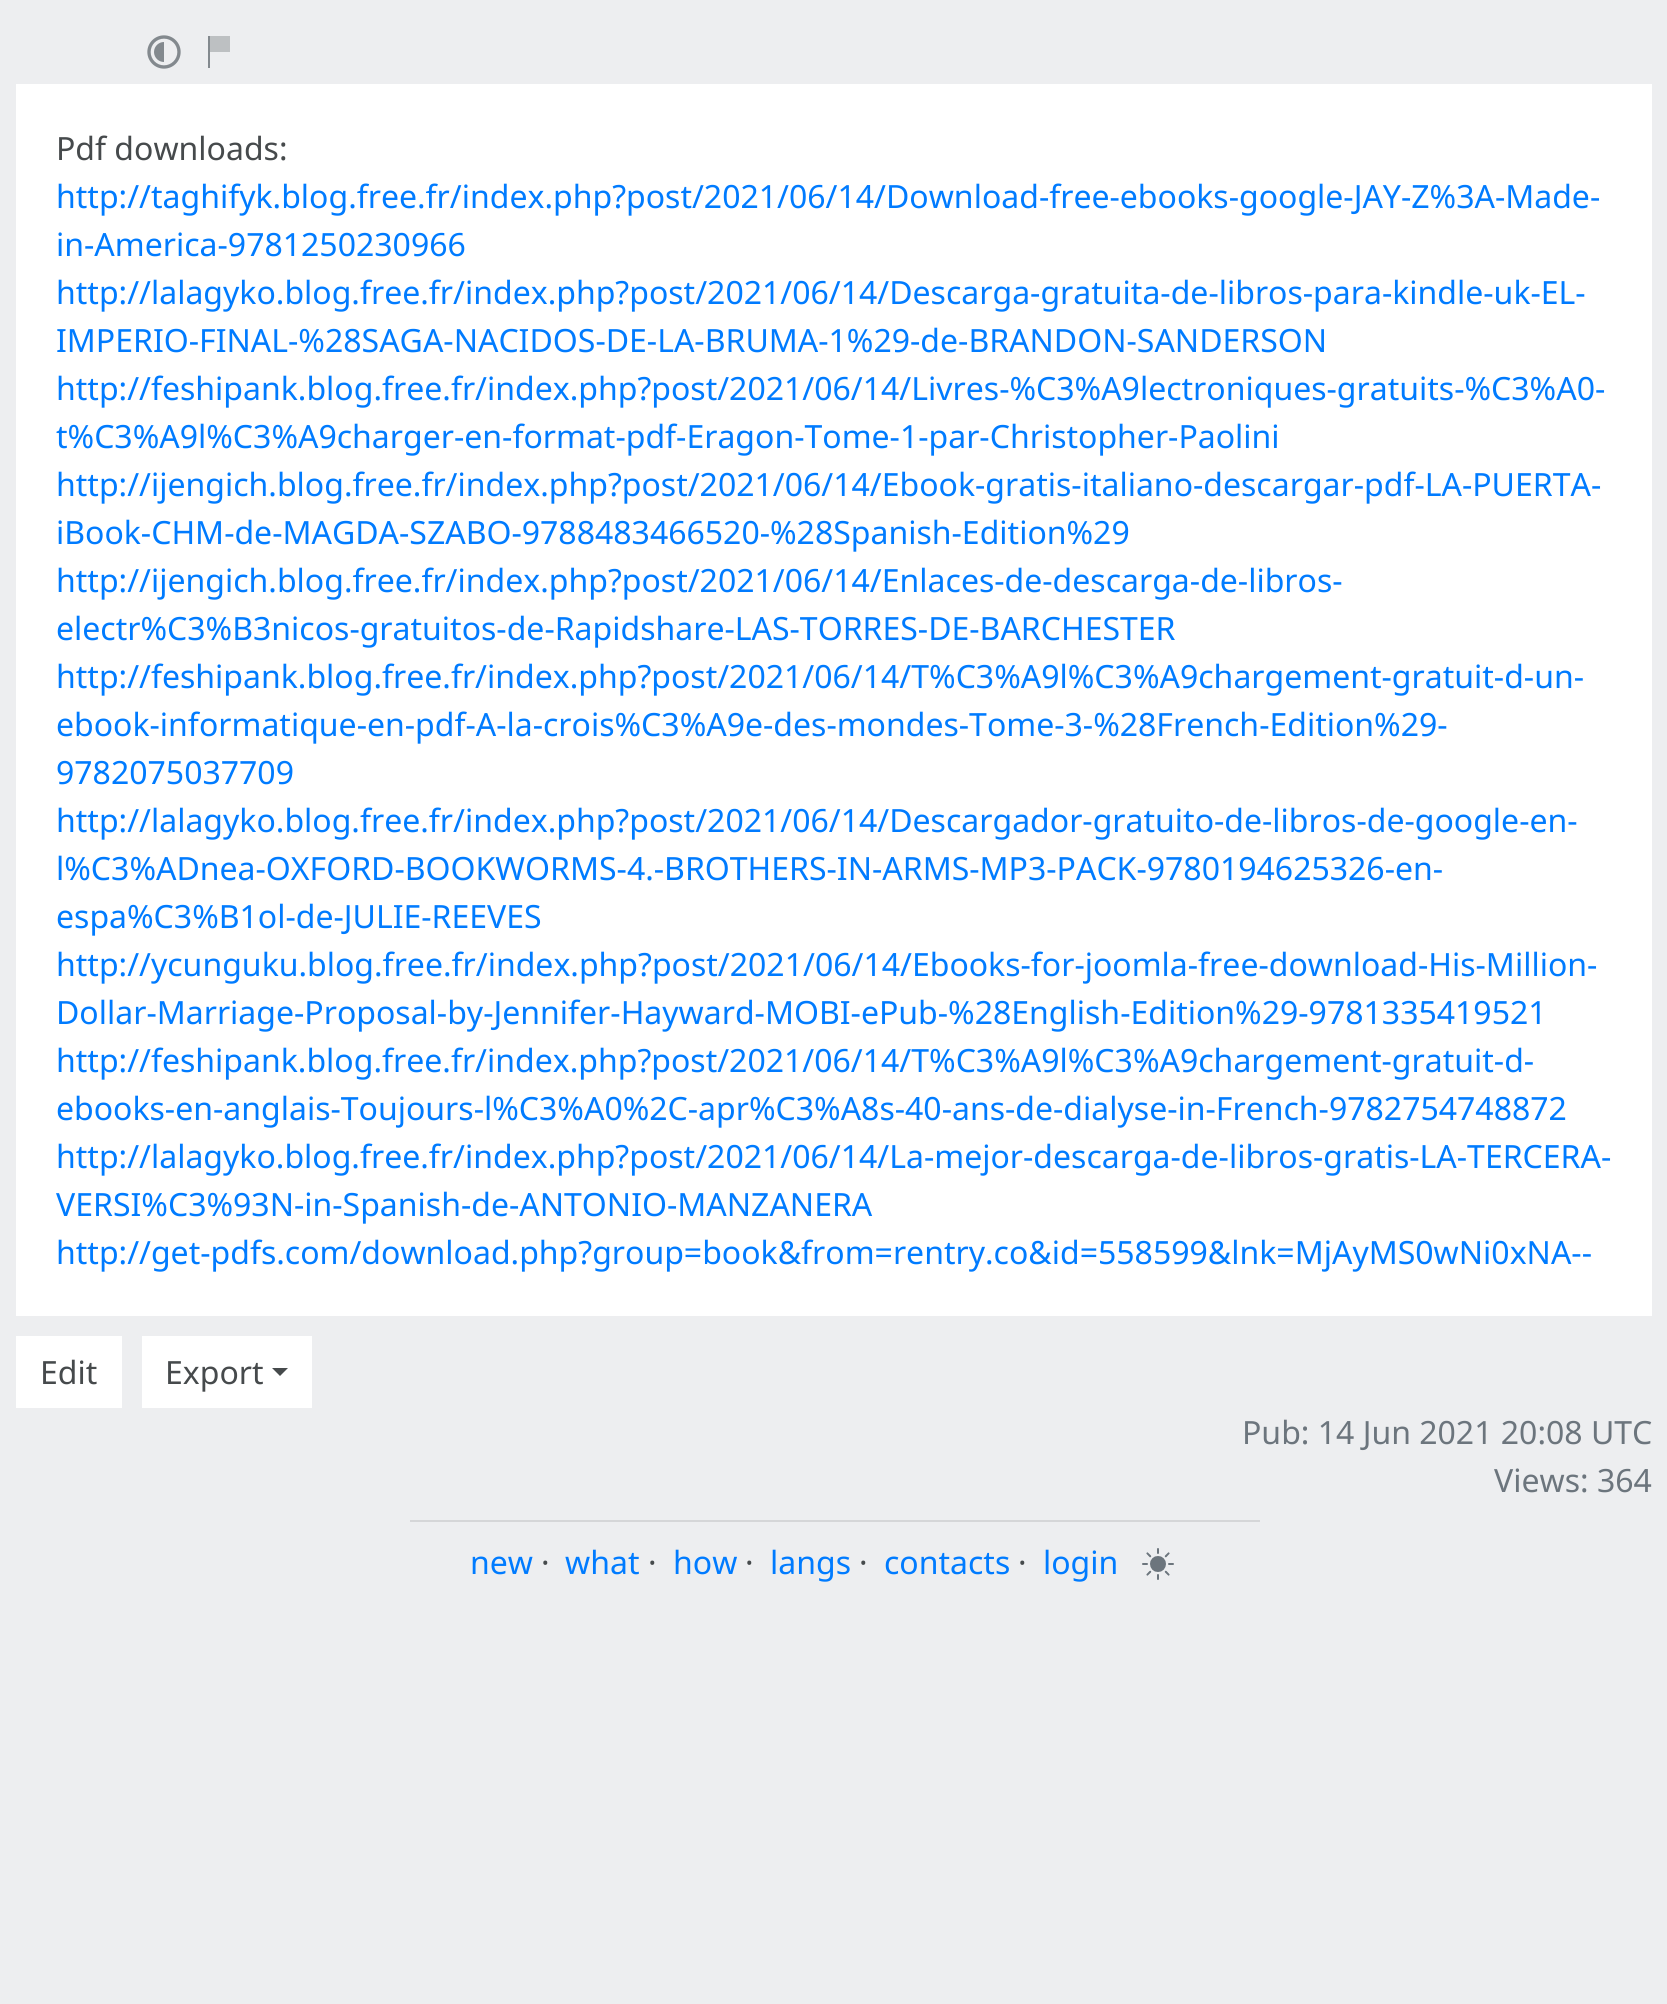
import math
import cairo


def paste(ctx, path, x, y, w, h):
	ctx.save()
	ctx.set_source_surface(cairo.ImageSurface.create_from_png(path), x, y)
	ctx.rectangle(x, y, w, h)
	ctx.fill()
	ctx.restore()

def draw(ctx):
	ctx.set_source_rgb(0.929, 0.933, 0.941)
	ctx.paint()
	paste(ctx, 'media/1.png', 147, 35, 34, 34)
	ctx.set_source_rgb(0.514, 0.537, 0.557)
	ctx.rectangle(208, 36, 2, 32)
	ctx.fill()
	ctx.set_source_rgb(0.741, 0.753, 0.761)
	ctx.rectangle(210, 36, 20, 16)
	ctx.fill()
	ctx.set_source_rgb(1, 1, 1)
	ctx.rectangle(16, 84, 1636, 1232)
	ctx.fill()
	ctx.select_font_face('Noto Sans')
	ctx.set_font_size(32)
	ctx.set_source_rgb(0.275, 0.29, 0.298)
	ctx.move_to(56, 160)
	ctx.show_text('Pdf downloads:')
	ctx.set_source_rgb(0, 0.482, 1)
	for x, y, s in [
		(56, 208, 'http://taghifyk.blog.free.fr/index.php?post/2021/06/14/Download-free-ebooks-google-JAY-Z%3A-Made-'),
		(56, 256, 'in-America-9781250230966'),
		(56, 304, 'http://lalagyko.blog.free.fr/index.php?post/2021/06/14/Descarga-gratuita-de-libros-para-kindle-uk-EL-'),
		(56, 352, 'IMPERIO-FINAL-%28SAGA-NACIDOS-DE-LA-BRUMA-1%29-de-BRANDON-SANDERSON'),
		(56, 400, 'http://feshipank.blog.free.fr/index.php?post/2021/06/14/Livres-%C3%A9lectroniques-gratuits-%C3%A0-'),
		(56, 448, 't%C3%A9l%C3%A9charger-en-format-pdf-Eragon-Tome-1-par-Christopher-Paolini'),
		(56, 496, 'http://ijengich.blog.free.fr/index.php?post/2021/06/14/Ebook-gratis-italiano-descargar-pdf-LA-PUERTA-'),
		(56, 544, 'iBook-CHM-de-MAGDA-SZABO-9788483466520-%28Spanish-Edition%29'),
		(56, 592, 'http://ijengich.blog.free.fr/index.php?post/2021/06/14/Enlaces-de-descarga-de-libros-'),
		(56, 640, 'electr%C3%B3nicos-gratuitos-de-Rapidshare-LAS-TORRES-DE-BARCHESTER'),
		(56, 688, 'http://feshipank.blog.free.fr/index.php?post/2021/06/14/T%C3%A9l%C3%A9chargement-gratuit-d-un-'),
		(56, 736, 'ebook-informatique-en-pdf-A-la-crois%C3%A9e-des-mondes-Tome-3-%28French-Edition%29-'),
		(56, 784, '9782075037709'),
		(56, 832, 'http://lalagyko.blog.free.fr/index.php?post/2021/06/14/Descargador-gratuito-de-libros-de-google-en-'),
		(56, 880, 'l%C3%ADnea-OXFORD-BOOKWORMS-4.-BROTHERS-IN-ARMS-MP3-PACK-9780194625326-en-'),
		(56, 928, 'espa%C3%B1ol-de-JULIE-REEVES'),
		(56, 976, 'http://ycunguku.blog.free.fr/index.php?post/2021/06/14/Ebooks-for-joomla-free-download-His-Million-'),
		(56, 1024, 'Dollar-Marriage-Proposal-by-Jennifer-Hayward-MOBI-ePub-%28English-Edition%29-9781335419521'),
		(56, 1072, 'http://feshipank.blog.free.fr/index.php?post/2021/06/14/T%C3%A9l%C3%A9chargement-gratuit-d-'),
		(56, 1120, 'ebooks-en-anglais-Toujours-l%C3%A0%2C-apr%C3%A8s-40-ans-de-dialyse-in-French-9782754748872'),
		(56, 1168, 'http://lalagyko.blog.free.fr/index.php?post/2021/06/14/La-mejor-descarga-de-libros-gratis-LA-TERCERA-'),
		(56, 1216, 'VERSI%C3%93N-in-Spanish-de-ANTONIO-MANZANERA'),
		(56, 1264, 'http://get-pdfs.com/download.php?group=book&from=rentry.co&id=558599&lnk=MjAyMS0wNi0xNA--'),
	]:
		ctx.move_to(x, y)
		ctx.show_text(s)
	ctx.set_source_rgb(1, 1, 1)
	ctx.rectangle(16, 1336, 106, 72)
	ctx.fill()
	ctx.set_source_rgb(0.275, 0.29, 0.298)
	ctx.move_to(40, 1384)
	ctx.show_text('Edit')
	ctx.set_source_rgb(1, 1, 1)
	ctx.rectangle(142, 1336, 170, 72)
	ctx.fill()
	ctx.set_source_rgb(0.275, 0.29, 0.298)
	ctx.move_to(165, 1384)
	ctx.show_text('Export')
	ctx.new_path()
	ctx.move_to(272, 1368)
	ctx.line_to(288, 1368)
	ctx.line_to(280, 1376)
	ctx.close_path()
	ctx.fill()
	ctx.set_source_rgb(0.424, 0.459, 0.49)
	ctx.move_to(1242, 1444)
	ctx.show_text('Pub: 14 Jun 2021 20:08 UTC')
	ctx.move_to(1494, 1492)
	ctx.show_text('Views: 364')
	ctx.set_source_rgb(0.835, 0.839, 0.847)
	ctx.rectangle(410, 1520, 850, 2)
	ctx.fill()
	ctx.set_source_rgb(0, 0.482, 1)
	ctx.move_to(470, 1574)
	ctx.show_text('new')
	ctx.set_source_rgb(0.275, 0.29, 0.298)
	ctx.move_to(541, 1574)
	ctx.show_text('·')
	ctx.set_source_rgb(0, 0.482, 1)
	ctx.move_to(565, 1574)
	ctx.show_text('what')
	ctx.set_source_rgb(0.275, 0.29, 0.298)
	ctx.move_to(648, 1574)
	ctx.show_text('·')
	ctx.set_source_rgb(0, 0.482, 1)
	ctx.move_to(673, 1574)
	ctx.show_text('how')
	ctx.set_source_rgb(0.275, 0.29, 0.298)
	ctx.move_to(745, 1574)
	ctx.show_text('·')
	ctx.set_source_rgb(0, 0.482, 1)
	ctx.move_to(770, 1574)
	ctx.show_text('langs')
	ctx.set_source_rgb(0.275, 0.29, 0.298)
	ctx.move_to(859, 1574)
	ctx.show_text('·')
	ctx.set_source_rgb(0, 0.482, 1)
	ctx.move_to(884, 1574)
	ctx.show_text('contacts')
	ctx.set_source_rgb(0.275, 0.29, 0.298)
	ctx.move_to(1018, 1574)
	ctx.show_text('·')
	ctx.set_source_rgb(0, 0.482, 1)
	ctx.move_to(1043, 1574)
	ctx.show_text('login')
	paste(ctx, 'media/2.png', 1142, 1548, 32, 32)


surface = cairo.ImageSurface(cairo.FORMAT_RGB24, 1667, 2004)
ctx = cairo.Context(surface)
options = cairo.FontOptions()
options.set_hint_metrics(cairo.HINT_METRICS_OFF)
options.set_hint_style(cairo.HINT_STYLE_NONE)
ctx.set_font_options(options)
ctx.set_miter_limit(4)
draw(ctx)
surface.write_to_png('image.png')
